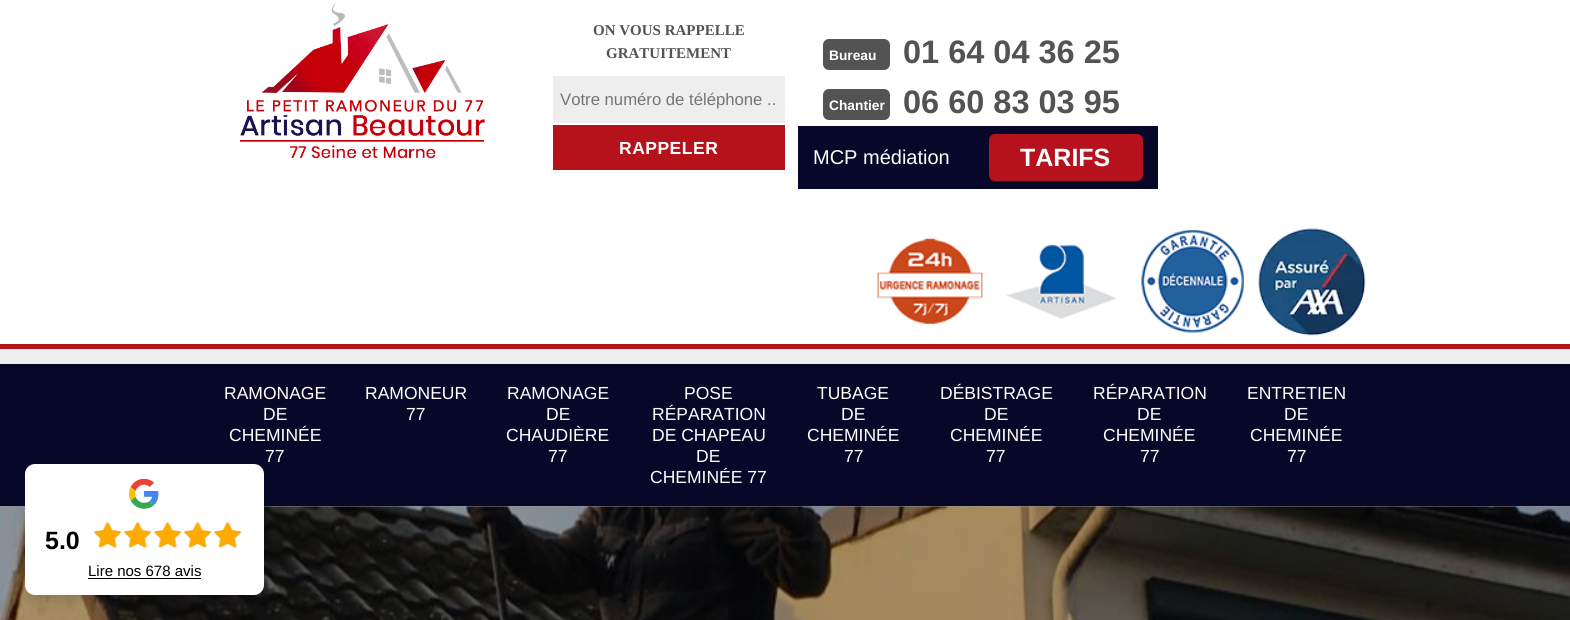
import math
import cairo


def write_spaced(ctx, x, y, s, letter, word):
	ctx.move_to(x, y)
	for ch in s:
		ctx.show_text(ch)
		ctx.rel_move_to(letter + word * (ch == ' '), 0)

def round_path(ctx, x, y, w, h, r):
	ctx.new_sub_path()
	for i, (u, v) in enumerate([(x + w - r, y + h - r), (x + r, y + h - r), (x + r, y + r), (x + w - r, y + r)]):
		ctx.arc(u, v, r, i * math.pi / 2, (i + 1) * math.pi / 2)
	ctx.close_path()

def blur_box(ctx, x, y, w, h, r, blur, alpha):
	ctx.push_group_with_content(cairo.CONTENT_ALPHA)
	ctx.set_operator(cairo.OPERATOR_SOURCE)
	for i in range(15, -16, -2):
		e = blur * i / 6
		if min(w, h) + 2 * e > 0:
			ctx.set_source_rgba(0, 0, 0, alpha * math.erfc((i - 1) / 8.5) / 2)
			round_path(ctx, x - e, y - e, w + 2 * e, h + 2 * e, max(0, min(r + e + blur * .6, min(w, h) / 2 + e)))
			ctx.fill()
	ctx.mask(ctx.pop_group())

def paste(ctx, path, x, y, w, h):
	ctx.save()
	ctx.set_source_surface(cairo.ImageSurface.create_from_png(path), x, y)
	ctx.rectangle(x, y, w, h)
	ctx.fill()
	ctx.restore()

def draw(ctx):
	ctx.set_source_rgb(0.933, 0.933, 0.933)
	ctx.paint()
	ctx.set_source_rgb(0.608, 0.608, 0.608)
	ctx.rectangle(0, 506, 1570, 1)
	ctx.fill()
	ctx.set_source_rgb(1, 1, 1)
	ctx.rectangle(0, 0, 1570, 344)
	ctx.fill()
	paste(ctx, 'media/1.png', 240, 2, 245, 157)
	ctx.select_font_face('Liberation Serif', cairo.FONT_SLANT_NORMAL, cairo.FONT_WEIGHT_BOLD)
	ctx.set_font_size(15)
	ctx.set_source_rgb(0.325, 0.325, 0.325)
	ctx.move_to(593, 35)
	ctx.show_text('ON VOUS RAPPELLE')
	ctx.move_to(606, 58)
	ctx.show_text('GRATUITEMENT')
	ctx.set_source_rgb(0.933, 0.933, 0.933)
	ctx.rectangle(553, 76, 232, 47)
	ctx.fill()
	ctx.select_font_face('Liberation Sans')
	ctx.set_font_size(16.7)
	ctx.set_source_rgb(0.459, 0.459, 0.459)
	ctx.move_to(560, 105)
	ctx.show_text('Votre numéro de téléphone ..')
	ctx.set_source_rgb(0.71, 0.071, 0.106)
	ctx.rectangle(553, 125, 232, 45)
	ctx.fill()
	ctx.select_font_face('Liberation Sans', cairo.FONT_SLANT_NORMAL, cairo.FONT_WEIGHT_BOLD)
	ctx.set_font_size(17.5)
	ctx.set_source_rgb(1, 1, 1)
	write_spaced(ctx, 619, 154, 'RAPPELER', 0.5, 0)
	ctx.set_source_rgb(0.325, 0.325, 0.325)
	round_path(ctx, 823, 39, 67, 31, 6)
	ctx.fill()
	ctx.set_font_size(13.75)
	ctx.set_source_rgb(1, 1, 1)
	ctx.move_to(829, 60)
	ctx.show_text('Bureau')
	ctx.set_font_size(32.5)
	ctx.set_source_rgb(0.325, 0.325, 0.325)
	ctx.move_to(903, 63)
	ctx.show_text('01 64 04 36 25')
	round_path(ctx, 823, 89, 67, 31, 6)
	ctx.fill()
	ctx.set_font_size(13.75)
	ctx.set_source_rgb(1, 1, 1)
	ctx.move_to(829, 110)
	ctx.show_text('Chantier')
	ctx.set_font_size(32.5)
	ctx.set_source_rgb(0.325, 0.325, 0.325)
	ctx.move_to(903, 113)
	ctx.show_text('06 60 83 03 95')
	ctx.set_source_rgb(0.031, 0.035, 0.161)
	ctx.rectangle(798, 126, 360, 63)
	ctx.fill()
	ctx.select_font_face('Liberation Sans')
	ctx.set_font_size(20)
	ctx.set_source_rgb(1, 1, 1)
	ctx.move_to(813, 164)
	ctx.show_text('MCP médiation')
	ctx.set_source_rgb(0.71, 0.071, 0.114)
	round_path(ctx, 989, 134, 154, 47, 6)
	ctx.fill()
	ctx.select_font_face('Liberation Sans', cairo.FONT_SLANT_NORMAL, cairo.FONT_WEIGHT_BOLD)
	ctx.set_font_size(25)
	ctx.set_source_rgb(1, 1, 1)
	ctx.move_to(1020, 166)
	ctx.show_text('TARIFS')
	paste(ctx, 'media/2.png', 877, 238, 106, 86)
	paste(ctx, 'media/3.png', 1006, 244, 110, 75)
	paste(ctx, 'media/4.png', 1141, 229, 103, 104)
	paste(ctx, 'media/5.png', 1258, 228, 108, 108)
	ctx.set_source_rgb(0.71, 0.071, 0.106)
	ctx.rectangle(0, 344, 1570, 5)
	ctx.fill()
	ctx.set_source_rgb(0.031, 0.035, 0.161)
	ctx.rectangle(0, 364, 1570, 142)
	ctx.fill()
	ctx.select_font_face('Liberation Sans')
	ctx.set_font_size(17.5)
	ctx.set_source_rgb(1, 1, 1)
	for x, y, s in [
		(224, 399, 'RAMONAGE'),
		(263, 420, 'DE'),
		(229, 441, 'CHEMINÉE'),
		(265, 462, '77'),
		(365, 399, 'RAMONEUR'),
		(406, 420, '77'),
		(507, 399, 'RAMONAGE'),
		(546, 420, 'DE'),
		(506, 441, 'CHAUDIÈRE'),
		(548, 462, '77'),
		(684, 399, 'POSE'),
		(652, 420, 'RÉPARATION'),
		(652, 441, 'DE CHAPEAU'),
		(696, 462, 'DE'),
		(650, 483, 'CHEMINÉE 77'),
		(817, 399, 'TUBAGE'),
		(841, 420, 'DE'),
		(807, 441, 'CHEMINÉE'),
		(844, 462, '77'),
		(940, 399, 'DÉBISTRAGE'),
		(984, 420, 'DE'),
		(950, 441, 'CHEMINÉE'),
		(986, 462, '77'),
		(1093, 399, 'RÉPARATION'),
		(1137, 420, 'DE'),
		(1103, 441, 'CHEMINÉE'),
		(1140, 462, '77'),
		(1247, 399, 'ENTRETIEN'),
		(1284, 420, 'DE'),
		(1250, 441, 'CHEMINÉE'),
		(1287, 462, '77'),
	]:
		ctx.move_to(x, y)
		ctx.show_text(s)
	paste(ctx, 'media/6.png', 0, 506, 1570, 114)
	ctx.set_source_rgb(0, 0, 0)
	blur_box(ctx, 25, 466, 239, 132, 10, 7.5, 0.15)
	ctx.set_source_rgb(1, 1, 1)
	round_path(ctx, 25, 464, 239, 131, 10)
	ctx.fill()
	paste(ctx, 'media/7.png', 129, 479, 30, 30)
	ctx.select_font_face('Liberation Sans', cairo.FONT_SLANT_NORMAL, cairo.FONT_WEIGHT_BOLD)
	ctx.set_font_size(25)
	ctx.set_source_rgb(0, 0, 0)
	ctx.move_to(45, 549)
	ctx.show_text('5.0')
	paste(ctx, 'media/8.png', 94, 522, 148, 26)
	paste(ctx, 'media/9.png', 94, 522, 148, 26)
	ctx.select_font_face('Liberation Sans')
	ctx.set_font_size(15)
	ctx.move_to(88, 576)
	ctx.show_text('Lire nos 678 avis')
	ctx.rectangle(88, 578, 113, 1)
	ctx.fill()


surface = cairo.ImageSurface(cairo.FORMAT_RGB24, 1570, 620)
ctx = cairo.Context(surface)
options = cairo.FontOptions()
options.set_hint_metrics(cairo.HINT_METRICS_OFF)
options.set_hint_style(cairo.HINT_STYLE_NONE)
ctx.set_font_options(options)
ctx.set_miter_limit(4)
draw(ctx)
surface.write_to_png('image.png')
